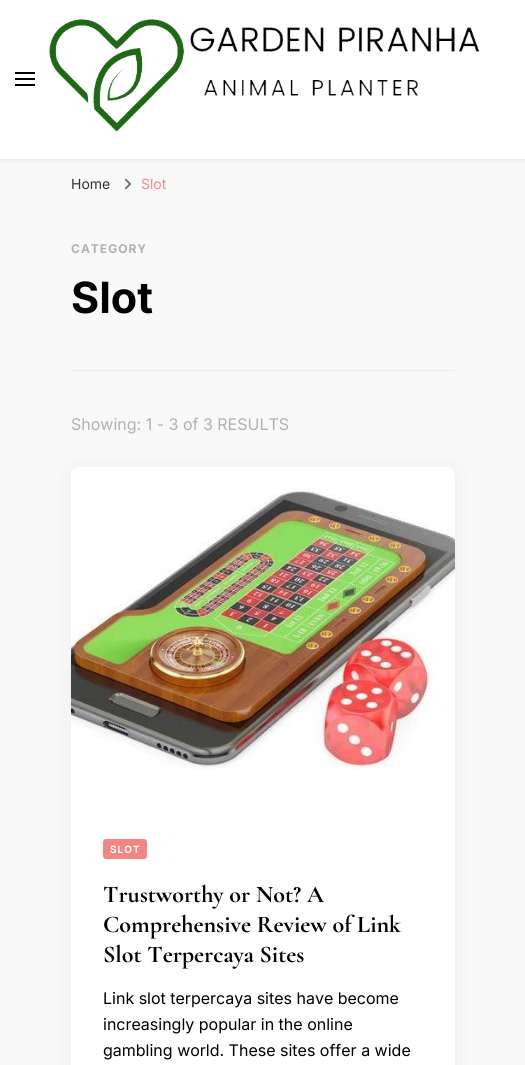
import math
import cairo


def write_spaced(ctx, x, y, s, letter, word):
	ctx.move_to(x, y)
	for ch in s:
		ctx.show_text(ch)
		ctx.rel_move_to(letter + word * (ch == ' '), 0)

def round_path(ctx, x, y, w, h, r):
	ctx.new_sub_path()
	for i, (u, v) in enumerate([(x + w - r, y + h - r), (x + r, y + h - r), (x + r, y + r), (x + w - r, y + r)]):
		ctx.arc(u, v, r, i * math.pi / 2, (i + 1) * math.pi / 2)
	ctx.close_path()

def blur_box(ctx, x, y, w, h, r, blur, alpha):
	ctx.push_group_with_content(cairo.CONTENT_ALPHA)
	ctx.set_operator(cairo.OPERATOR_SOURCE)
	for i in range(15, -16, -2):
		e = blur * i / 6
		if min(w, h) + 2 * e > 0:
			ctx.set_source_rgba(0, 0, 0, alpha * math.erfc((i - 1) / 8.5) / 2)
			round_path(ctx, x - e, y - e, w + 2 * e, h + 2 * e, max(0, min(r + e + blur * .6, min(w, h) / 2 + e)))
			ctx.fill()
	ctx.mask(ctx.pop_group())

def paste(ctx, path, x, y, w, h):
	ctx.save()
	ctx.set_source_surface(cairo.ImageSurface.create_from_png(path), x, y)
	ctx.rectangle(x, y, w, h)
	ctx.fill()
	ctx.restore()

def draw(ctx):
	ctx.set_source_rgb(0.973, 0.973, 0.973)
	ctx.paint()
	ctx.set_source_rgb(0, 0, 0)
	blur_box(ctx, 0, 1, 525, 159, 0, 2.5, 0.1)
	ctx.set_source_rgb(1, 1, 1)
	ctx.rectangle(0, 0, 525, 159)
	ctx.fill()
	ctx.set_source_rgb(0, 0, 0)
	ctx.rectangle(15, 72, 20, 2)
	ctx.rectangle(15, 78, 20, 2)
	ctx.rectangle(15, 84, 20, 2)
	ctx.fill()
	paste(ctx, 'media/1.png', 49, 19, 431, 113)
	ctx.select_font_face('Inter')
	ctx.set_font_size(14)
	ctx.set_source_rgb(0.2, 0.2, 0.2)
	ctx.move_to(71, 189)
	ctx.show_text('Home')
	paste(ctx, 'media/2.png', 124, 178, 7, 12)
	ctx.set_source_rgb(0.957, 0.522, 0.522)
	ctx.move_to(141, 189)
	ctx.show_text('Slot')
	ctx.set_source_rgb(0.922, 0.922, 0.922)
	ctx.rectangle(71, 370, 384, 1)
	ctx.fill()
	ctx.select_font_face('Inter', cairo.FONT_SLANT_NORMAL, cairo.FONT_WEIGHT_BOLD)
	ctx.set_font_size(12)
	ctx.set_source_rgb(0.694, 0.694, 0.698)
	write_spaced(ctx, 71, 253, 'CATEGORY', 1, 0)
	ctx.set_font_size(43)
	ctx.set_source_rgb(0, 0, 0)
	ctx.move_to(71, 313)
	ctx.show_text('Slot')
	ctx.select_font_face('Inter')
	ctx.set_font_size(16)
	ctx.set_source_rgb(0.694, 0.694, 0.698)
	ctx.move_to(71, 430)
	ctx.show_text('Showing: 1 - 3 of 3 RESULTS')
	ctx.set_source_rgb(0, 0, 0)
	blur_box(ctx, 71, 469, 384, 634, 8, 10, 0.05)
	ctx.set_source_rgb(1, 1, 1)
	round_path(ctx, 71, 467, 384, 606, 8)
	ctx.fill()
	paste(ctx, 'media/3.png', 71, 488, 384, 281)
	ctx.set_source_rgb(0.957, 0.522, 0.522)
	round_path(ctx, 103, 839, 44, 20, 3)
	ctx.fill()
	ctx.select_font_face('Inter', cairo.FONT_SLANT_NORMAL, cairo.FONT_WEIGHT_BOLD)
	ctx.set_font_size(10)
	ctx.set_source_rgb(1, 1, 1)
	write_spaced(ctx, 110, 853, 'SLOT', 1, 0)
	ctx.select_font_face('Cormorant Garamond', cairo.FONT_SLANT_NORMAL, cairo.FONT_WEIGHT_BOLD)
	ctx.set_font_size(24)
	ctx.set_source_rgb(0, 0, 0)
	for x, y, s in [
		(103, 902, 'Trustworthy or Not? A'),
		(103, 932, 'Comprehensive Review of Link'),
		(103, 962, 'Slot Terpercaya Sites'),
	]:
		ctx.move_to(x, y)
		ctx.show_text(s)
	ctx.select_font_face('Inter')
	ctx.set_font_size(16)
	for x, y, s in [
		(103, 1004, 'Link slot terpercaya sites have become'),
		(103, 1030, 'increasingly popular in the online'),
		(103, 1056, 'gambling world. These sites offer a wide'),
	]:
		ctx.move_to(x, y)
		ctx.show_text(s)


surface = cairo.ImageSurface(cairo.FORMAT_RGB24, 525, 1065)
ctx = cairo.Context(surface)
options = cairo.FontOptions()
options.set_hint_metrics(cairo.HINT_METRICS_OFF)
options.set_hint_style(cairo.HINT_STYLE_NONE)
ctx.set_font_options(options)
ctx.set_miter_limit(4)
draw(ctx)
surface.write_to_png('image.png')
